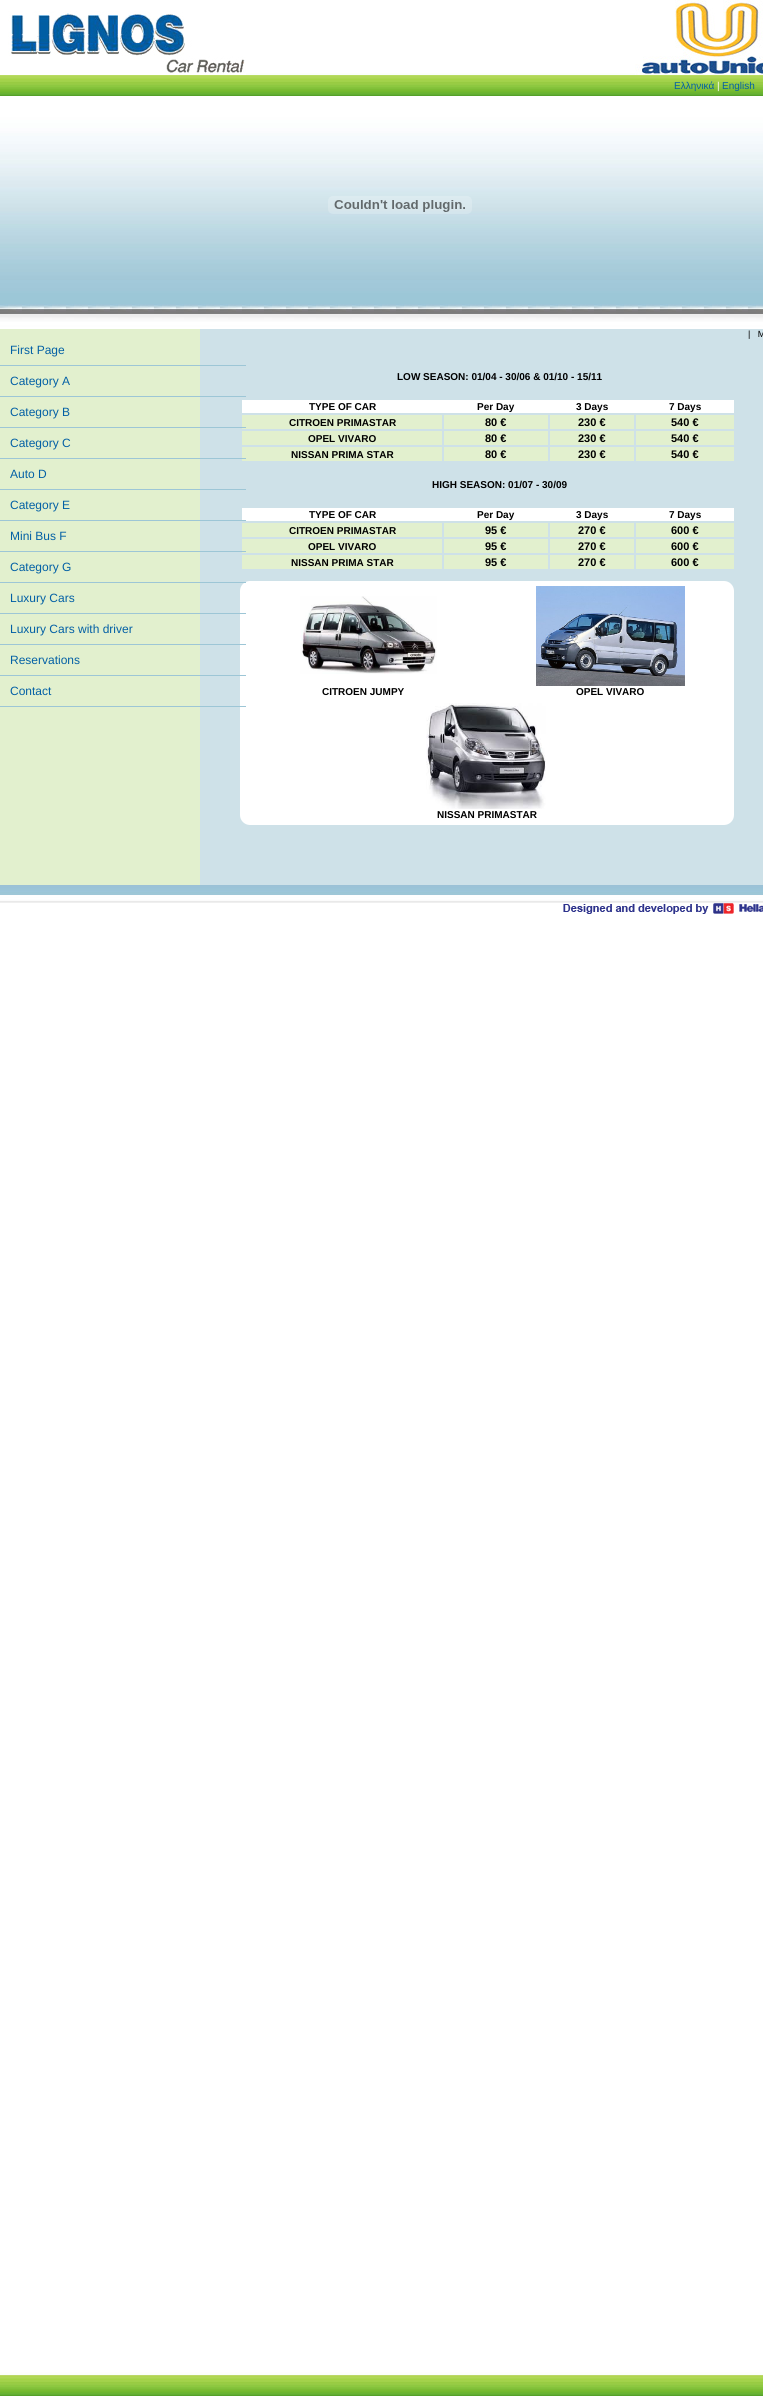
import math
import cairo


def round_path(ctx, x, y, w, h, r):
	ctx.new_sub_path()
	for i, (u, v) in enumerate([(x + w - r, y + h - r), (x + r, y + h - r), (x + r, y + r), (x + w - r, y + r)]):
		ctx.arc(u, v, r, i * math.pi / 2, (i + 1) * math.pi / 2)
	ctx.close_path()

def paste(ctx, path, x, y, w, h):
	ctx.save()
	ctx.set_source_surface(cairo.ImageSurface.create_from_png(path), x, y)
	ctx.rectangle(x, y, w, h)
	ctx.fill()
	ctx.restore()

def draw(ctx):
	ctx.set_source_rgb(1, 1, 1)
	ctx.paint()
	paste(ctx, 'media/1.png', 0, 73, 763, 2323)
	paste(ctx, 'media/2.png', 0, 11, 246, 64)
	paste(ctx, 'media/3.png', 635, 0, 128, 75)
	paste(ctx, 'media/4.png', 0, 75, 763, 2)
	ctx.select_font_face('Liberation Sans')
	ctx.set_font_size(10)
	ctx.set_source_rgb(0.012, 0.376, 0.647)
	ctx.move_to(674, 89)
	ctx.show_text('Eλληνικά')
	ctx.set_source_rgb(1, 1, 1)
	ctx.move_to(717, 89)
	ctx.show_text('|')
	ctx.set_source_rgb(0.012, 0.376, 0.647)
	ctx.move_to(722, 89)
	ctx.show_text('English')
	paste(ctx, 'media/5.png', 328, 196, 144, 18)
	ctx.set_source_rgb(0.929, 0.929, 0.929)
	ctx.rectangle(0, 314, 763, 2)
	ctx.fill()
	ctx.set_source_rgb(0.886, 0.941, 0.808)
	ctx.rectangle(0, 329, 200, 556)
	ctx.fill()
	ctx.set_font_size(12)
	ctx.set_source_rgb(0.012, 0.376, 0.647)
	ctx.move_to(10, 354)
	ctx.show_text('First Page')
	ctx.set_source_rgb(0.808, 0.882, 0.91)
	ctx.rectangle(200, 329, 563, 556)
	ctx.fill()
	ctx.set_source_rgb(0.616, 0.776, 0.839)
	ctx.rectangle(0, 365, 246, 1)
	ctx.fill()
	ctx.set_source_rgb(0.012, 0.376, 0.647)
	ctx.move_to(10, 385)
	ctx.show_text('Category A')
	ctx.set_source_rgb(0.616, 0.776, 0.839)
	ctx.rectangle(0, 396, 246, 1)
	ctx.fill()
	ctx.set_source_rgb(0.012, 0.376, 0.647)
	ctx.move_to(10, 416)
	ctx.show_text('Category B')
	ctx.set_source_rgb(0.886, 0.941, 0.808)
	ctx.rectangle(242, 415, 200, 14)
	ctx.fill()
	ctx.set_source_rgb(0.616, 0.776, 0.839)
	ctx.rectangle(0, 427, 246, 1)
	ctx.fill()
	ctx.set_source_rgb(0.012, 0.376, 0.647)
	ctx.move_to(10, 447)
	ctx.show_text('Category C')
	ctx.set_source_rgb(0.886, 0.941, 0.808)
	ctx.rectangle(242, 447, 200, 14)
	ctx.fill()
	ctx.set_source_rgb(0.616, 0.776, 0.839)
	ctx.rectangle(0, 458, 246, 1)
	ctx.fill()
	ctx.set_source_rgb(0.012, 0.376, 0.647)
	ctx.move_to(10, 478)
	ctx.show_text('Auto D')
	ctx.set_source_rgb(0.616, 0.776, 0.839)
	ctx.rectangle(0, 489, 246, 1)
	ctx.fill()
	ctx.set_source_rgb(0.012, 0.376, 0.647)
	ctx.move_to(10, 509)
	ctx.show_text('Category E')
	ctx.set_source_rgb(1, 1, 1)
	ctx.rectangle(242, 508, 492, 13)
	ctx.fill()
	ctx.set_source_rgb(0.616, 0.776, 0.839)
	ctx.rectangle(0, 520, 246, 1)
	ctx.fill()
	ctx.set_source_rgb(0.012, 0.376, 0.647)
	ctx.move_to(10, 540)
	ctx.show_text('Mini Bus F')
	ctx.set_source_rgb(0.886, 0.941, 0.808)
	ctx.rectangle(242, 539, 200, 14)
	ctx.fill()
	ctx.set_source_rgb(0.616, 0.776, 0.839)
	ctx.rectangle(0, 551, 246, 1)
	ctx.fill()
	ctx.set_source_rgb(0.012, 0.376, 0.647)
	ctx.move_to(10, 571)
	ctx.show_text('Category G')
	ctx.set_source_rgb(1, 1, 1)
	round_path(ctx, 240, 581, 494, 244, 10)
	ctx.fill()
	ctx.set_source_rgb(0.616, 0.776, 0.839)
	ctx.rectangle(0, 582, 246, 1)
	ctx.fill()
	ctx.set_source_rgb(0.012, 0.376, 0.647)
	ctx.move_to(10, 602)
	ctx.show_text('Luxury Cars')
	ctx.set_source_rgb(0.616, 0.776, 0.839)
	ctx.rectangle(0, 613, 246, 1)
	ctx.fill()
	ctx.set_source_rgb(0.012, 0.376, 0.647)
	ctx.move_to(10, 633)
	ctx.show_text('Luxury Cars with driver')
	ctx.set_source_rgb(0.616, 0.776, 0.839)
	ctx.rectangle(0, 644, 246, 1)
	ctx.fill()
	ctx.set_source_rgb(0.012, 0.376, 0.647)
	ctx.move_to(10, 664)
	ctx.show_text('Reservations')
	ctx.set_source_rgb(0.616, 0.776, 0.839)
	ctx.rectangle(0, 675, 246, 1)
	ctx.fill()
	ctx.set_source_rgb(0.012, 0.376, 0.647)
	ctx.move_to(10, 695)
	ctx.show_text('Contact')
	ctx.set_source_rgb(0.616, 0.776, 0.839)
	ctx.rectangle(0, 706, 246, 1)
	ctx.fill()
	ctx.set_font_size(9)
	ctx.set_source_rgb(0, 0, 0)
	ctx.move_to(748, 337)
	ctx.show_text('|   M')
	ctx.select_font_face('Liberation Sans', cairo.FONT_SLANT_NORMAL, cairo.FONT_WEIGHT_BOLD)
	ctx.set_font_size(10)
	ctx.move_to(397, 380)
	ctx.show_text('LOW SEASON: 01/04 - 30/06 & 01/10 - 15/11')
	ctx.set_source_rgb(1, 1, 1)
	ctx.rectangle(242, 400, 492, 13)
	ctx.fill()
	ctx.set_source_rgb(0, 0, 0)
	for x, y, s in [
		(309, 410, 'TYPE OF CAR'),
		(477, 410, 'Per Day'),
		(576, 410, '3 Days'),
		(669, 410, '7 Days'),
		(289, 426, 'CITROEN PRIMASTAR'),
	]:
		ctx.move_to(x, y)
		ctx.show_text(s)
	ctx.set_source_rgb(0.886, 0.941, 0.808)
	ctx.rectangle(444, 415, 104, 14)
	ctx.fill()
	ctx.set_font_size(11)
	ctx.set_source_rgb(0, 0, 0)
	ctx.move_to(485, 426)
	ctx.show_text('80 €')
	ctx.set_source_rgb(0.886, 0.941, 0.808)
	ctx.rectangle(550, 415, 84, 14)
	ctx.fill()
	ctx.set_source_rgb(0, 0, 0)
	ctx.move_to(578, 426)
	ctx.show_text('230 €')
	ctx.set_source_rgb(0.886, 0.941, 0.808)
	ctx.rectangle(636, 415, 98, 14)
	ctx.fill()
	ctx.set_source_rgb(0, 0, 0)
	ctx.move_to(671, 426)
	ctx.show_text('540 €')
	ctx.set_source_rgb(0.886, 0.941, 0.808)
	ctx.rectangle(242, 431, 200, 14)
	ctx.fill()
	ctx.set_font_size(10)
	ctx.set_source_rgb(0, 0, 0)
	ctx.move_to(308, 442)
	ctx.show_text('OPEL VIVARO')
	ctx.set_source_rgb(0.886, 0.941, 0.808)
	ctx.rectangle(444, 431, 104, 14)
	ctx.fill()
	ctx.set_font_size(11)
	ctx.set_source_rgb(0, 0, 0)
	ctx.move_to(485, 442)
	ctx.show_text('80 €')
	ctx.set_source_rgb(0.886, 0.941, 0.808)
	ctx.rectangle(550, 431, 84, 14)
	ctx.fill()
	ctx.set_source_rgb(0, 0, 0)
	ctx.move_to(578, 442)
	ctx.show_text('230 €')
	ctx.set_source_rgb(0.886, 0.941, 0.808)
	ctx.rectangle(636, 431, 98, 14)
	ctx.fill()
	ctx.set_source_rgb(0, 0, 0)
	ctx.move_to(671, 442)
	ctx.show_text('540 €')
	ctx.set_font_size(10)
	ctx.move_to(291, 458)
	ctx.show_text('NISSAN PRIMA STAR')
	ctx.set_source_rgb(0.886, 0.941, 0.808)
	ctx.rectangle(444, 447, 104, 14)
	ctx.fill()
	ctx.set_font_size(11)
	ctx.set_source_rgb(0, 0, 0)
	ctx.move_to(485, 458)
	ctx.show_text('80 €')
	ctx.set_source_rgb(0.886, 0.941, 0.808)
	ctx.rectangle(550, 447, 84, 14)
	ctx.fill()
	ctx.set_source_rgb(0, 0, 0)
	ctx.move_to(578, 458)
	ctx.show_text('230 €')
	ctx.set_source_rgb(0.886, 0.941, 0.808)
	ctx.rectangle(636, 447, 98, 14)
	ctx.fill()
	ctx.set_source_rgb(0, 0, 0)
	ctx.move_to(671, 458)
	ctx.show_text('540 €')
	ctx.set_font_size(10)
	for x, y, s in [
		(432, 488, 'HIGH SEASON: 01/07 - 30/09'),
		(309, 518, 'TYPE OF CAR'),
		(477, 518, 'Per Day'),
		(576, 518, '3 Days'),
		(669, 518, '7 Days'),
	]:
		ctx.move_to(x, y)
		ctx.show_text(s)
	ctx.set_source_rgb(0.886, 0.941, 0.808)
	ctx.rectangle(242, 523, 200, 14)
	ctx.fill()
	ctx.set_source_rgb(0, 0, 0)
	ctx.move_to(289, 534)
	ctx.show_text('CITROEN PRIMASTAR')
	ctx.set_source_rgb(0.886, 0.941, 0.808)
	ctx.rectangle(444, 523, 104, 14)
	ctx.fill()
	ctx.set_font_size(11)
	ctx.set_source_rgb(0, 0, 0)
	ctx.move_to(485, 534)
	ctx.show_text('95 €')
	ctx.set_source_rgb(0.886, 0.941, 0.808)
	ctx.rectangle(550, 523, 84, 14)
	ctx.fill()
	ctx.set_source_rgb(0, 0, 0)
	ctx.move_to(578, 534)
	ctx.show_text('270 €')
	ctx.set_source_rgb(0.886, 0.941, 0.808)
	ctx.rectangle(636, 523, 98, 14)
	ctx.fill()
	ctx.set_source_rgb(0, 0, 0)
	ctx.move_to(671, 534)
	ctx.show_text('600 €')
	ctx.set_font_size(10)
	ctx.move_to(308, 550)
	ctx.show_text('OPEL VIVARO')
	ctx.set_source_rgb(0.886, 0.941, 0.808)
	ctx.rectangle(444, 539, 104, 14)
	ctx.fill()
	ctx.set_font_size(11)
	ctx.set_source_rgb(0, 0, 0)
	ctx.move_to(485, 550)
	ctx.show_text('95 €')
	ctx.set_source_rgb(0.886, 0.941, 0.808)
	ctx.rectangle(550, 539, 84, 14)
	ctx.fill()
	ctx.set_source_rgb(0, 0, 0)
	ctx.move_to(578, 550)
	ctx.show_text('270 €')
	ctx.set_source_rgb(0.886, 0.941, 0.808)
	ctx.rectangle(636, 539, 98, 14)
	ctx.fill()
	ctx.set_source_rgb(0, 0, 0)
	ctx.move_to(671, 550)
	ctx.show_text('600 €')
	ctx.set_source_rgb(0.886, 0.941, 0.808)
	ctx.rectangle(242, 555, 200, 14)
	ctx.fill()
	ctx.set_font_size(10)
	ctx.set_source_rgb(0, 0, 0)
	ctx.move_to(291, 566)
	ctx.show_text('NISSAN PRIMA STAR')
	ctx.set_source_rgb(0.886, 0.941, 0.808)
	ctx.rectangle(444, 555, 104, 14)
	ctx.fill()
	ctx.set_font_size(11)
	ctx.set_source_rgb(0, 0, 0)
	ctx.move_to(485, 566)
	ctx.show_text('95 €')
	ctx.set_source_rgb(0.886, 0.941, 0.808)
	ctx.rectangle(550, 555, 84, 14)
	ctx.fill()
	ctx.set_source_rgb(0, 0, 0)
	ctx.move_to(578, 566)
	ctx.show_text('270 €')
	ctx.set_source_rgb(0.886, 0.941, 0.808)
	ctx.rectangle(636, 555, 98, 14)
	ctx.fill()
	ctx.set_source_rgb(0, 0, 0)
	ctx.move_to(671, 566)
	ctx.show_text('600 €')
	paste(ctx, 'media/6.png', 300, 596, 137, 78)
	paste(ctx, 'media/7.png', 536, 586, 149, 100)
	ctx.set_font_size(10)
	ctx.move_to(322, 695)
	ctx.show_text('CITROEN JUMPY')
	ctx.move_to(576, 695)
	ctx.show_text('OPEL VIVARO')
	paste(ctx, 'media/8.png', 426, 703, 120, 106)
	ctx.move_to(437, 818)
	ctx.show_text('NISSAN PRIMASTAR')
	paste(ctx, 'media/9.png', 0, 885, 763, 18)
	paste(ctx, 'media/10.png', 563, 903, 200, 11)


surface = cairo.ImageSurface(cairo.FORMAT_RGB24, 763, 2400)
ctx = cairo.Context(surface)
options = cairo.FontOptions()
options.set_hint_metrics(cairo.HINT_METRICS_OFF)
options.set_hint_style(cairo.HINT_STYLE_NONE)
ctx.set_font_options(options)
ctx.set_miter_limit(4)
draw(ctx)
surface.write_to_png('image.png')
